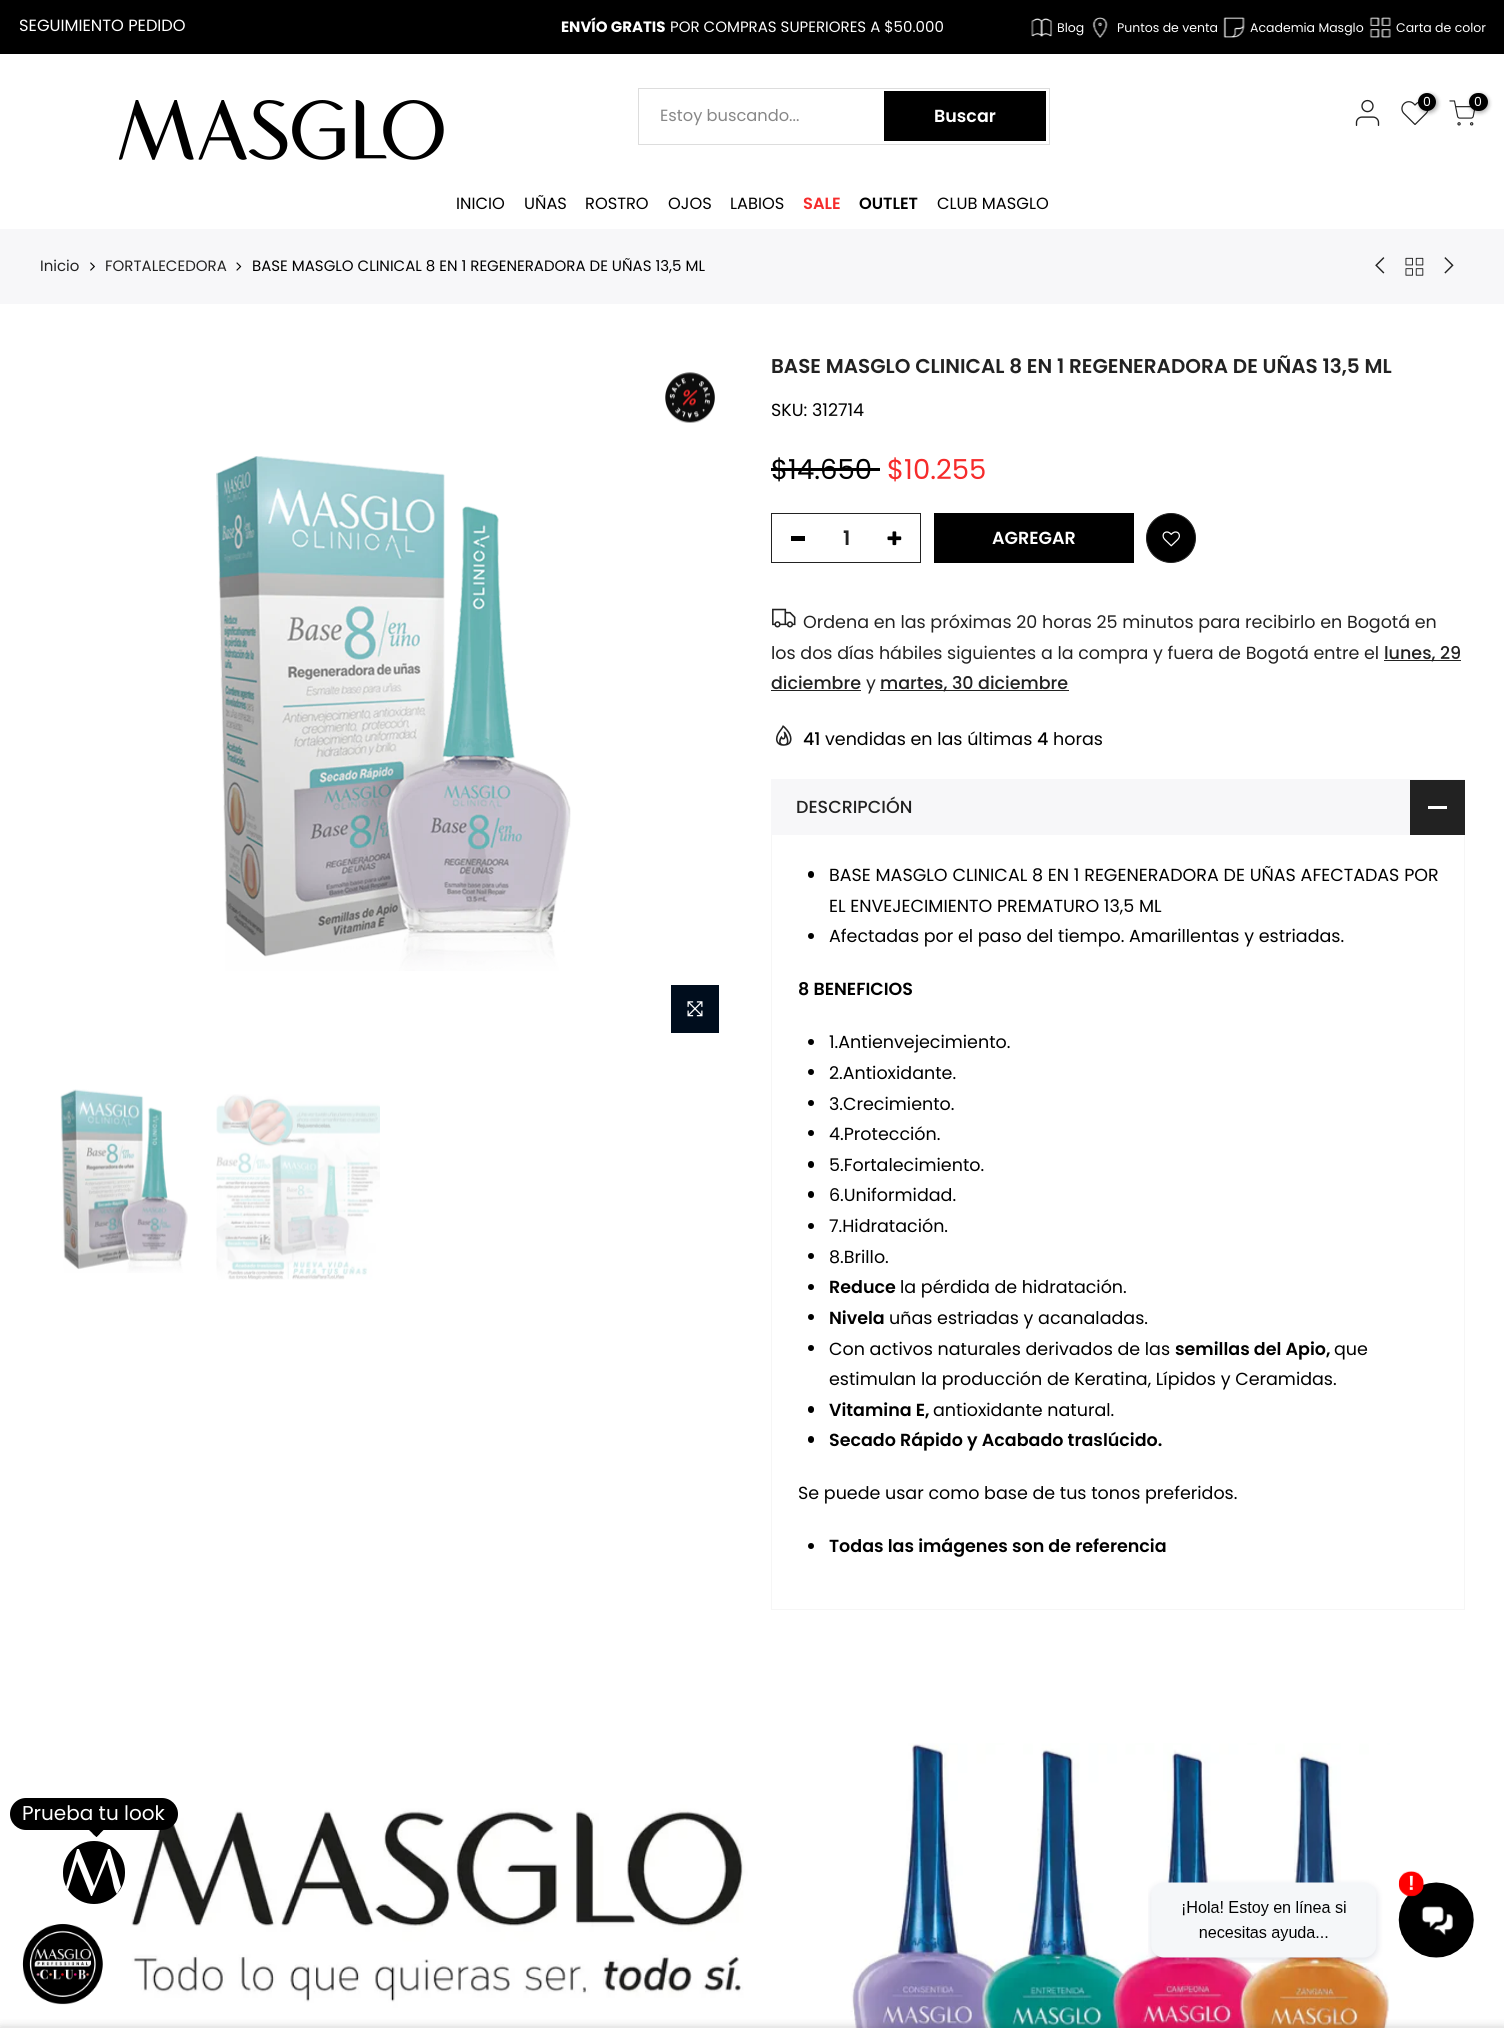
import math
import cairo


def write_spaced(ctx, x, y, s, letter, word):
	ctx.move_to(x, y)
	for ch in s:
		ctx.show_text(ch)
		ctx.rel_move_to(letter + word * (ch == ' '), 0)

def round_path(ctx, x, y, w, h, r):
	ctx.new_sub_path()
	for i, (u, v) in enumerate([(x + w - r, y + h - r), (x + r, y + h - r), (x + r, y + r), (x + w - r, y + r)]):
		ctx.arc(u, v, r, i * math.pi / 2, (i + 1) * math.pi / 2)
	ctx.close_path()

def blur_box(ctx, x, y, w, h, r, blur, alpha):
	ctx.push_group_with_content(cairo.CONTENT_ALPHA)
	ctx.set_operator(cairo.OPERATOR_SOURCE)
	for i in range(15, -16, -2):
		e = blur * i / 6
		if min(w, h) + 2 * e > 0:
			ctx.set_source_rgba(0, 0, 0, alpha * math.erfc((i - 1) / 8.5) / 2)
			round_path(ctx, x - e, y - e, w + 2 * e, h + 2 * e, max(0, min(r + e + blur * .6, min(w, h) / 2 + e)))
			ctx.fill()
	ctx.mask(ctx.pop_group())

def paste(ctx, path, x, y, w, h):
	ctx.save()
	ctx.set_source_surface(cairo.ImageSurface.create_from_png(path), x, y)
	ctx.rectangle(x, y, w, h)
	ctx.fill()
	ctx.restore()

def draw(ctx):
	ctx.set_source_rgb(1, 1, 1)
	ctx.paint()
	ctx.set_source_rgb(0, 0, 0)
	ctx.rectangle(0, 0, 1504, 54)
	ctx.fill()
	ctx.select_font_face('Poppins')
	ctx.set_font_size(16.25)
	ctx.set_source_rgb(1, 1, 1)
	ctx.move_to(19, 31)
	ctx.show_text('SEGUIMIENTO PEDIDO')
	ctx.select_font_face('Poppins', cairo.FONT_SLANT_NORMAL, cairo.FONT_WEIGHT_BOLD)
	ctx.set_font_size(15)
	ctx.move_to(561, 32)
	ctx.show_text('ENVÍO GRATIS')
	ctx.select_font_face('Poppins')
	ctx.move_to(670, 32)
	ctx.show_text('POR COMPRAS SUPERIORES A $50.000')
	paste(ctx, 'media/1.png', 1031, 18, 22, 19)
	ctx.set_font_size(12.5)
	ctx.move_to(1057, 32)
	ctx.show_text('Blog')
	paste(ctx, 'media/2.png', 1092, 17, 16, 21)
	ctx.move_to(1117, 32)
	ctx.show_text('Puntos de venta')
	paste(ctx, 'media/3.png', 1223, 17, 22, 21)
	ctx.move_to(1250, 32)
	ctx.show_text('Academia Masglo')
	paste(ctx, 'media/4.png', 1369, 17, 22, 21)
	ctx.move_to(1396, 32)
	ctx.show_text('Carta de color')
	paste(ctx, 'media/5.png', 119, 100, 325, 60)
	ctx.rectangle(638.5, 88.5, 411, 56)
	ctx.set_source_rgb(0.867, 0.867, 0.867)
	ctx.set_line_width(1)
	ctx.stroke()
	ctx.set_font_size(16.25)
	ctx.set_source_rgb(0.529, 0.529, 0.529)
	ctx.move_to(660, 121)
	ctx.show_text('Estoy buscando...')
	ctx.set_source_rgb(0, 0, 0)
	ctx.rectangle(884, 91, 162, 50)
	ctx.fill()
	ctx.select_font_face('Poppins SemiBold')
	ctx.set_font_size(17.5)
	ctx.set_source_rgb(1, 1, 1)
	ctx.move_to(934, 122)
	ctx.show_text('Buscar')
	paste(ctx, 'media/6.png', 1355, 99, 25, 27)
	paste(ctx, 'media/7.png', 1401, 101, 28, 24)
	ctx.set_source_rgb(0, 0, 0)
	blur_box(ctx, 1419, 94, 19, 19, 9.5, 2, 0.3)
	ctx.set_source_rgb(0, 0, 0)
	ctx.arc(1427, 102, 9, 0, 2 * math.pi)
	ctx.fill()
	ctx.select_font_face('Poppins')
	ctx.set_font_size(12.5)
	ctx.set_source_rgb(1, 1, 1)
	ctx.move_to(1423, 106)
	ctx.show_text('0')
	paste(ctx, 'media/8.png', 1449, 100, 26, 26)
	ctx.set_source_rgb(0, 0, 0)
	blur_box(ctx, 1470, 94, 19, 19, 9.5, 2, 0.3)
	ctx.set_source_rgb(0, 0, 0)
	round_path(ctx, 1469, 93, 19, 18, 9)
	ctx.fill()
	ctx.set_source_rgb(1, 1, 1)
	ctx.move_to(1474, 106)
	ctx.show_text('0')
	ctx.set_font_size(16.25)
	ctx.set_source_rgb(0, 0, 0)
	for x, y, s in [
		(456, 209, 'INICIO'),
		(524, 209, 'UÑAS'),
		(585, 209, 'ROSTRO'),
		(668, 209, 'OJOS'),
		(730, 209, 'LABIOS'),
	]:
		ctx.move_to(x, y)
		ctx.show_text(s)
	ctx.select_font_face('Poppins SemiBold')
	ctx.set_source_rgb(0.961, 0.169, 0.169)
	ctx.move_to(803, 209)
	ctx.show_text('SALE')
	ctx.set_source_rgb(0, 0, 0)
	ctx.move_to(859, 209)
	ctx.show_text('OUTLET')
	ctx.select_font_face('Poppins')
	ctx.move_to(937, 209)
	ctx.show_text('CLUB MASGLO')
	ctx.set_source_rgb(0.965, 0.965, 0.973)
	ctx.rectangle(0, 229, 1504, 75)
	ctx.fill()
	ctx.set_font_size(15)
	ctx.set_source_rgb(0.133, 0.133, 0.133)
	ctx.move_to(40, 271)
	ctx.show_text('Inicio')
	paste(ctx, 'media/9.png', 90, 262, 5, 9)
	ctx.move_to(105, 271)
	ctx.show_text('FORTALECEDORA')
	paste(ctx, 'media/10.png', 236, 262, 6, 9)
	ctx.set_source_rgb(0, 0, 0)
	ctx.move_to(252, 271)
	ctx.show_text('BASE MASGLO CLINICAL 8 EN 1 REGENERADORA DE UÑAS 13,5 ML')
	paste(ctx, 'media/11.png', 1375, 257, 10, 17)
	paste(ctx, 'media/12.png', 1405, 257, 19, 19)
	paste(ctx, 'media/13.png', 1444, 257, 10, 17)
	paste(ctx, 'media/14.png', 665, 372, 50, 51)
	paste(ctx, 'media/15.png', 216, 456, 355, 515)
	ctx.set_source_rgb(0, 0.051, 0.114)
	ctx.rectangle(671, 985, 48, 48)
	ctx.fill()
	paste(ctx, 'media/16.png', 687, 1001, 16, 16)
	paste(ctx, 'media/17.png', 60, 1089, 128, 184)
	paste(ctx, 'media/18.png', 216, 1094, 164, 186)
	ctx.select_font_face('Poppins SemiBold')
	ctx.set_font_size(20)
	ctx.set_source_rgb(0.133, 0.133, 0.133)
	ctx.move_to(771, 373)
	ctx.show_text('BASE MASGLO CLINICAL 8 EN 1 REGENERADORA DE UÑAS 13,5 ML')
	ctx.select_font_face('Poppins')
	ctx.set_font_size(17.5)
	ctx.set_source_rgb(0, 0, 0)
	ctx.move_to(771, 416)
	ctx.show_text('SKU: 312714')
	ctx.set_font_size(27.5)
	ctx.move_to(771, 479)
	ctx.show_text('$14.650')
	ctx.rectangle(771, 468, 109, 3)
	ctx.fill()
	ctx.set_source_rgb(0.961, 0.169, 0.169)
	ctx.move_to(887, 479)
	ctx.show_text('$10.255')
	ctx.rectangle(771.5, 513.5, 149, 49)
	ctx.set_source_rgb(0.133, 0.133, 0.133)
	ctx.stroke()
	ctx.select_font_face('Poppins SemiBold')
	ctx.set_font_size(20)
	ctx.move_to(843, 545)
	ctx.show_text('1')
	ctx.set_source_rgb(0, 0, 0)
	ctx.rectangle(791, 536, 14, 5)
	ctx.fill()
	paste(ctx, 'media/19.png', 887, 531, 15, 15)
	ctx.rectangle(934, 513, 200, 50)
	ctx.fill()
	ctx.set_font_size(17.5)
	ctx.set_source_rgb(1, 1, 1)
	ctx.move_to(992, 544)
	ctx.show_text('AGREGAR')
	ctx.set_source_rgb(0, 0, 0)
	ctx.new_path()
	ctx.arc(1171, 538, 24.5, 0, 2 * math.pi)
	ctx.fill_preserve()
	ctx.set_source_rgb(0.133, 0.133, 0.133)
	ctx.stroke()
	paste(ctx, 'media/20.png', 1162, 531, 18, 16)
	ctx.new_path()
	ctx.move_to(1163.5, 531)
	ctx.curve_to(1165.5, 529.5, 1168.5, 528, 1171, 528)
	ctx.curve_to(1184, 528, 1186, 546.5, 1173.5, 549)
	ctx.curve_to(1170, 550, 1166, 549, 1163.5, 546.5)
	ctx.move_to(1163.5, 546.5)
	ctx.curve_to(1159.5, 542, 1159.5, 535.5, 1163.5, 531)
	ctx.set_source_rgb(0, 0, 0)
	ctx.set_line_width(1.2)
	ctx.stroke()
	paste(ctx, 'media/21.png', 772, 608, 24, 20)
	ctx.select_font_face('Poppins')
	ctx.set_source_rgb(0.133, 0.133, 0.133)
	ctx.move_to(803, 628)
	ctx.show_text('Ordena en las próximas 20 horas 25 minutos para recibirlo en Bogotá en')
	ctx.move_to(771, 659)
	ctx.show_text('los dos días hábiles siguientes a la compra y fuera de Bogotá entre el')
	ctx.rectangle(1384, 660, 77, 1)
	ctx.fill()
	ctx.select_font_face('Poppins Medium')
	ctx.move_to(1384, 659)
	ctx.show_text('lunes, 29')
	ctx.move_to(771, 689)
	ctx.show_text('diciembre')
	ctx.rectangle(771, 690, 90, 1)
	ctx.fill()
	ctx.select_font_face('Poppins')
	ctx.move_to(866, 689)
	ctx.show_text('y')
	ctx.rectangle(880, 690, 189, 1)
	ctx.fill()
	ctx.select_font_face('Poppins Medium')
	ctx.move_to(880, 689)
	ctx.show_text('martes, 30 diciembre')
	paste(ctx, 'media/22.png', 775, 725, 17, 21)
	ctx.set_source_rgb(0, 0, 0)
	ctx.move_to(803, 745)
	ctx.show_text('41')
	ctx.select_font_face('Poppins')
	ctx.move_to(825, 745)
	ctx.show_text('vendidas en las últimas')
	ctx.select_font_face('Poppins Medium')
	ctx.move_to(1037, 745)
	ctx.show_text('4')
	ctx.select_font_face('Poppins')
	ctx.move_to(1053, 745)
	ctx.show_text('horas')
	ctx.set_source_rgb(0.965, 0.965, 0.973)
	ctx.rectangle(771, 779, 694, 56)
	ctx.fill()
	ctx.select_font_face('Poppins Medium')
	ctx.set_source_rgb(0.133, 0.133, 0.133)
	ctx.move_to(796, 813)
	ctx.show_text('DESCRIPCIÓN')
	ctx.rectangle(1410, 780, 55, 55)
	ctx.fill()
	ctx.set_source_rgb(1, 1, 1)
	ctx.rectangle(1428, 806, 19, 3)
	ctx.fill()
	ctx.set_source_rgb(0.961, 0.961, 0.961)
	ctx.rectangle(1464, 835, 1, 775)
	ctx.rectangle(771, 1609, 694, 1)
	ctx.rectangle(771, 835, 1, 775)
	ctx.fill()
	ctx.set_source_rgb(0, 0, 0)
	round_path(ctx, 808, 871, 6, 7, 3)
	ctx.fill()
	ctx.select_font_face('Poppins')
	write_spaced(ctx, 829, 881, 'BASE MASGLO CLINICAL 8 EN 1 REGENERADORA DE UÑAS AFECTADAS POR', 0, 0.1)
	ctx.move_to(829, 912)
	ctx.show_text('EL ENVEJECIMIENTO PREMATURO 13,5 ML')
	ctx.new_path()
	ctx.arc(811, 936, 3, 0, 2 * math.pi)
	ctx.fill()
	ctx.move_to(829, 942)
	ctx.show_text('Afectadas por el paso del tiempo. Amarillentas y estriadas.')
	ctx.select_font_face('Poppins SemiBold')
	ctx.move_to(798, 995)
	ctx.show_text('8 BENEFICIOS')
	ctx.new_path()
	ctx.arc(811, 1042, 3, 0, 2 * math.pi)
	ctx.fill()
	ctx.select_font_face('Poppins')
	ctx.move_to(829, 1048)
	ctx.show_text('1.Antienvejecimiento.')
	ctx.new_path()
	ctx.arc(811, 1072, 3, 0, 2 * math.pi)
	ctx.fill()
	ctx.move_to(829, 1079)
	ctx.show_text('2.Antioxidante.')
	ctx.new_path()
	ctx.arc(811, 1103, 3, 0, 2 * math.pi)
	ctx.fill()
	ctx.move_to(829, 1110)
	ctx.show_text('3.Crecimiento.')
	ctx.new_path()
	ctx.arc(811, 1133, 3, 0, 2 * math.pi)
	ctx.fill()
	ctx.move_to(829, 1140)
	ctx.show_text('4.Protección.')
	round_path(ctx, 808, 1161, 6, 7, 3)
	ctx.fill()
	ctx.move_to(829, 1171)
	ctx.show_text('5.Fortalecimiento.')
	round_path(ctx, 808, 1191, 6, 7, 3)
	ctx.fill()
	ctx.move_to(829, 1201)
	ctx.show_text('6.Uniformidad.')
	ctx.new_path()
	ctx.arc(811, 1226, 3, 0, 2 * math.pi)
	ctx.fill()
	ctx.move_to(829, 1232)
	ctx.show_text('7.Hidratación.')
	ctx.new_path()
	ctx.arc(811, 1256, 3, 0, 2 * math.pi)
	ctx.fill()
	ctx.move_to(829, 1263)
	ctx.show_text('8.Brillo.')
	ctx.new_path()
	ctx.arc(811, 1287, 3, 0, 2 * math.pi)
	ctx.fill()
	ctx.select_font_face('Poppins SemiBold')
	ctx.move_to(829, 1293)
	ctx.show_text('Reduce')
	ctx.select_font_face('Poppins')
	ctx.move_to(900, 1293)
	ctx.show_text('la pérdida de hidratación.')
	ctx.new_path()
	ctx.arc(811, 1317, 3, 0, 2 * math.pi)
	ctx.fill()
	ctx.select_font_face('Poppins SemiBold')
	ctx.move_to(829, 1324)
	ctx.show_text('Nivela')
	ctx.select_font_face('Poppins')
	ctx.move_to(889, 1324)
	ctx.show_text('uñas estriadas y acanaladas.')
	ctx.new_path()
	ctx.arc(811, 1348, 3, 0, 2 * math.pi)
	ctx.fill()
	ctx.move_to(829, 1355)
	ctx.show_text('Con activos naturales derivados de las')
	ctx.select_font_face('Poppins SemiBold')
	ctx.move_to(1175, 1355)
	ctx.show_text('semillas del Apio,')
	ctx.select_font_face('Poppins')
	ctx.move_to(1334, 1355)
	ctx.show_text('que')
	ctx.move_to(829, 1385)
	ctx.show_text('estimulan la producción de Keratina, Lípidos y Ceramidas.')
	round_path(ctx, 808, 1406, 6, 7, 3)
	ctx.fill()
	ctx.select_font_face('Poppins SemiBold')
	ctx.move_to(829, 1416)
	ctx.show_text('Vitamina E,')
	ctx.select_font_face('Poppins')
	ctx.move_to(933, 1416)
	ctx.show_text('antioxidante natural.')
	round_path(ctx, 808, 1436, 6, 7, 3)
	ctx.fill()
	ctx.select_font_face('Poppins SemiBold')
	ctx.move_to(829, 1446)
	ctx.show_text('Secado')
	ctx.move_to(900, 1446)
	ctx.show_text('Rápido y Acabado traslúcido.')
	ctx.select_font_face('Poppins')
	ctx.move_to(798, 1499)
	ctx.show_text('Se puede usar como base de tus tonos preferidos.')
	ctx.new_path()
	ctx.arc(811, 1546, 3, 0, 2 * math.pi)
	ctx.fill()
	ctx.select_font_face('Poppins SemiBold')
	ctx.move_to(829, 1552)
	ctx.show_text('Todas las imágenes son de referencia')
	paste(ctx, 'media/23.png', 131, 1743, 1259, 285)
	paste(ctx, 'media/24.png', 22, 1923, 81, 82)
	round_path(ctx, 10, 1798, 168, 32, 16)
	ctx.fill()
	ctx.select_font_face('Poppins')
	ctx.set_font_size(20)
	ctx.set_source_rgb(1, 1, 1)
	ctx.move_to(22, 1820)
	ctx.show_text('Prueba tu look')
	ctx.set_source_rgb(0, 0, 0)
	ctx.new_path()
	ctx.move_to(100, 1826.5)
	ctx.line_to(103.5, 1830)
	ctx.line_to(96.5, 1837)
	ctx.line_to(92.5, 1833.5)
	ctx.close_path()
	ctx.fill()
	ctx.new_path()
	ctx.move_to(92.5, 1826.5)
	ctx.line_to(100, 1833.5)
	ctx.line_to(96.5, 1837)
	ctx.line_to(89, 1830)
	ctx.close_path()
	ctx.fill()
	round_path(ctx, 63, 1841, 62, 63, 31)
	ctx.fill()
	ctx.set_source_rgb(1, 1, 1)
	ctx.new_path()
	ctx.move_to(68, 1890)
	ctx.line_to(66, 1887)
	ctx.line_to(77, 1849)
	ctx.line_to(79, 1849)
	ctx.line_to(94, 1886)
	ctx.line_to(108, 1849)
	ctx.line_to(110, 1849)
	ctx.line_to(121, 1887)
	ctx.line_to(117, 1894)
	ctx.curve_to(114, 1890, 113, 1883, 112, 1878)
	ctx.line_to(107, 1860)
	ctx.line_to(92, 1896)
	ctx.line_to(91, 1896)
	ctx.line_to(77, 1861)
	ctx.close_path()
	ctx.fill()
	paste(ctx, 'media/25.png', 1148, 1871, 326, 92)
	ctx.set_source_rgb(0, 0, 0)
	blur_box(ctx, 0, 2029, 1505, 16, 0, 5.5, 0.12)
	blur_box(ctx, 0, 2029, 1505, 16, 0, 5.5, 0.14)


surface = cairo.ImageSurface(cairo.FORMAT_RGB24, 1504, 2028)
ctx = cairo.Context(surface)
options = cairo.FontOptions()
options.set_hint_metrics(cairo.HINT_METRICS_OFF)
options.set_hint_style(cairo.HINT_STYLE_NONE)
ctx.set_font_options(options)
ctx.set_miter_limit(4)
draw(ctx)
surface.write_to_png('image.png')
